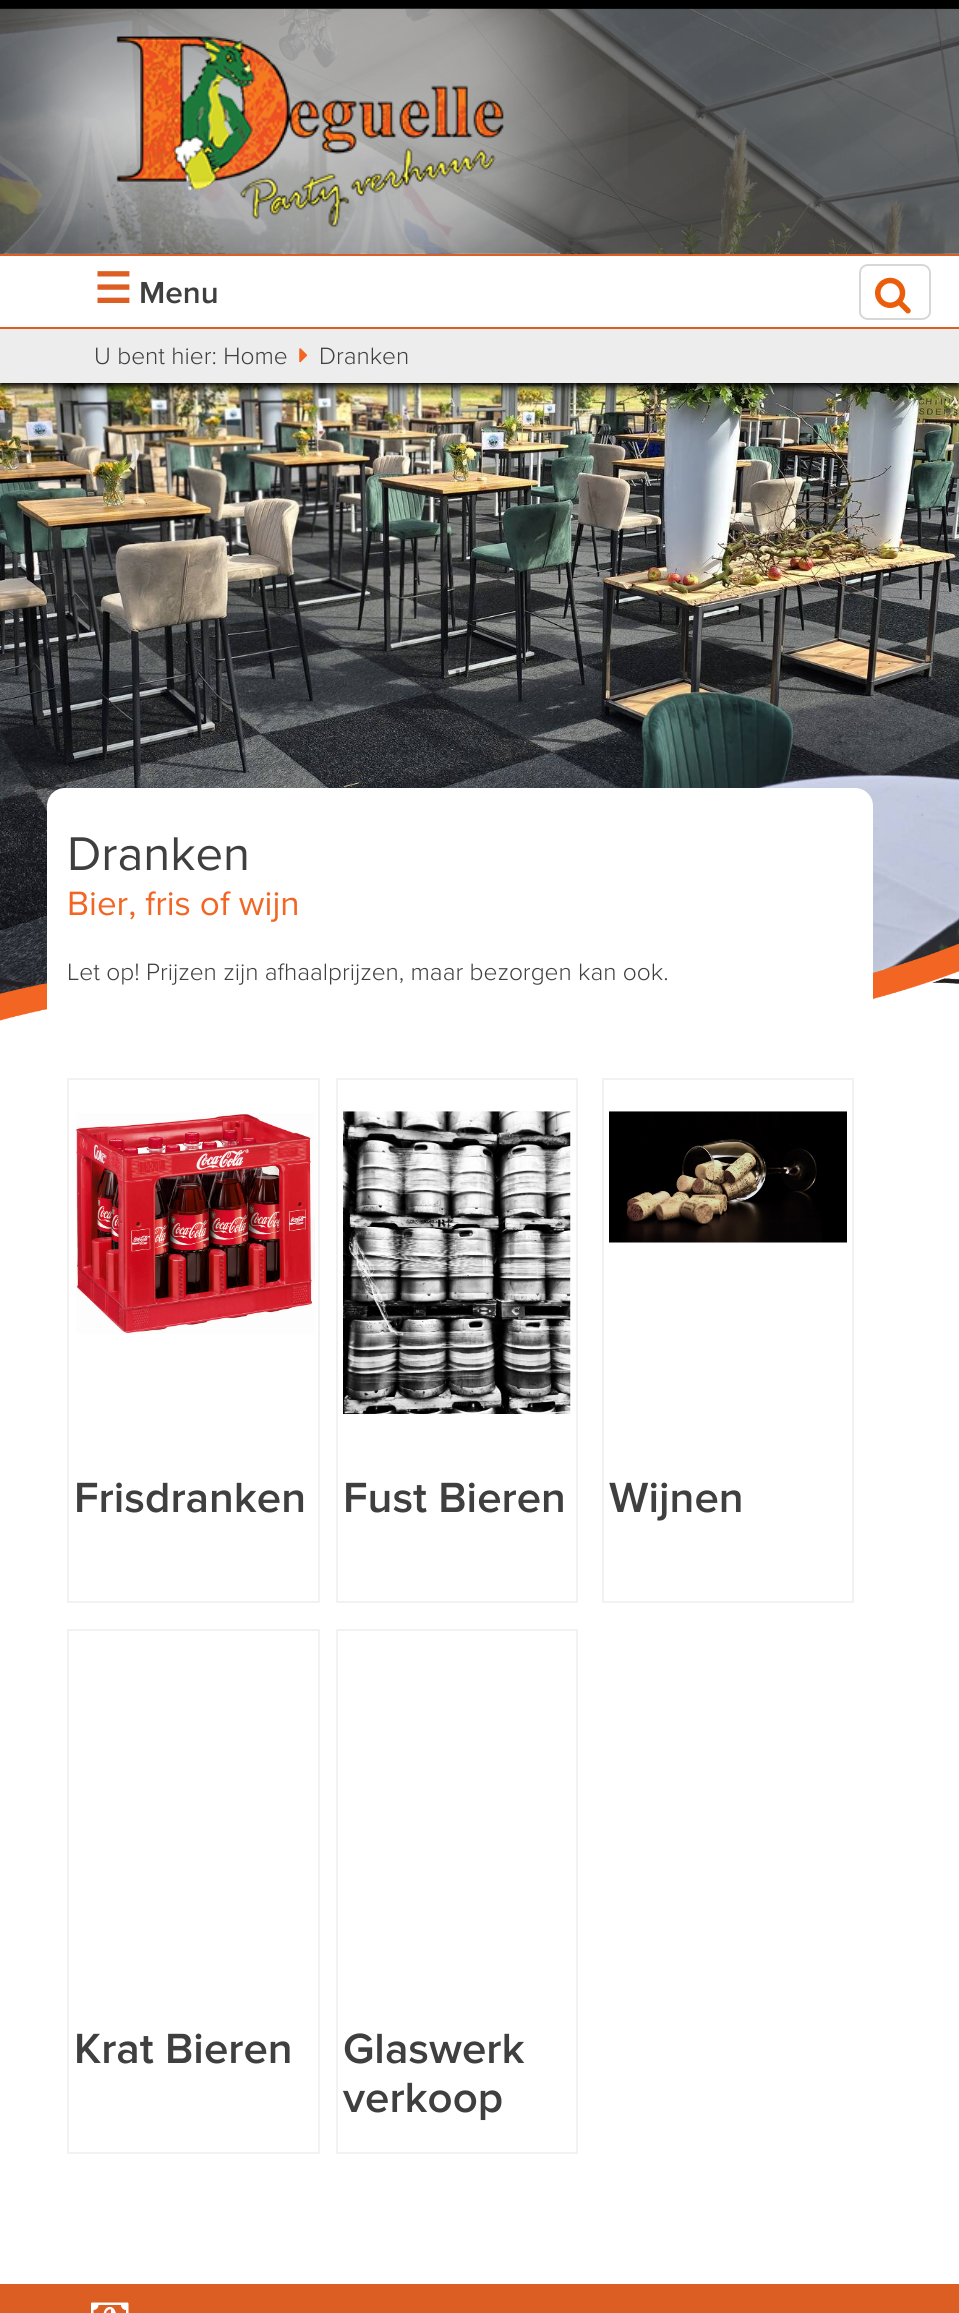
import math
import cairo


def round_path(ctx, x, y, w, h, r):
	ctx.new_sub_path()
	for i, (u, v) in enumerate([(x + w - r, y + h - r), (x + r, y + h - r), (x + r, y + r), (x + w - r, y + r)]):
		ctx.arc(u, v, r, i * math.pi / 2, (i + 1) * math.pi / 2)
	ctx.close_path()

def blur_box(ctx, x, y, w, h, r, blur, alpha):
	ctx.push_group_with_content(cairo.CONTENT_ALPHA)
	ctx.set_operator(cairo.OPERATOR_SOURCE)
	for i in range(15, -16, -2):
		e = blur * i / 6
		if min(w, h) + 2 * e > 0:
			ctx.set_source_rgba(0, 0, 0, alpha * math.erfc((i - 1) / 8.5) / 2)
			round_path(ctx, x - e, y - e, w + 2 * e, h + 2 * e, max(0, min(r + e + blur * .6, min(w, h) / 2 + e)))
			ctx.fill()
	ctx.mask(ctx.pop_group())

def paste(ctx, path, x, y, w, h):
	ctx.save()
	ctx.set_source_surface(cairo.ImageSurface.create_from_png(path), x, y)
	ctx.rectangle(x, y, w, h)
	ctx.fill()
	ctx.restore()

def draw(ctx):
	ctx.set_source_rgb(1, 1, 1)
	ctx.paint()
	paste(ctx, 'media/1.png', 0, 9, 959, 985)
	ctx.set_source_rgb(0, 0, 0)
	ctx.rectangle(0, 0, 959, 9)
	ctx.fill()
	paste(ctx, 'media/2.png', 0, 8, 959, 246)
	paste(ctx, 'media/3.png', 0, 8, 628, 246)
	ctx.set_source_rgb(0, 0, 0)
	blur_box(ctx, 0, 333, 959, 54, 0, 3.5, 1)
	ctx.set_source_rgb(1, 1, 1)
	ctx.rectangle(0, 256, 959, 71)
	ctx.fill()
	ctx.set_source_rgb(0.863, 0.369, 0.137)
	ctx.rectangle(0, 254, 959, 2)
	ctx.rectangle(0, 327, 959, 2)
	ctx.fill()
	ctx.select_font_face('DejaVu Sans', cairo.FONT_SLANT_NORMAL, cairo.FONT_WEIGHT_BOLD)
	ctx.set_font_size(42)
	ctx.move_to(94, 303)
	ctx.show_text('☰')
	ctx.select_font_face('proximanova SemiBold')
	ctx.set_font_size(31.5)
	ctx.set_source_rgb(0.247, 0.247, 0.247)
	ctx.move_to(139, 303)
	ctx.show_text('Menu')
	ctx.set_source_rgb(0.843, 0.843, 0.843)
	ctx.set_fill_rule(cairo.FILL_RULE_EVEN_ODD)
	ctx.new_path()
	ctx.move_to(903, 264)
	ctx.line_to(922, 264)
	ctx.curve_to(927, 264, 931, 268, 931, 273)
	ctx.line_to(931, 312)
	ctx.curve_to(931, 316, 927, 320, 922, 320)
	ctx.line_to(912, 320)
	ctx.curve_to(907, 320, 903, 316, 903, 312)
	ctx.close_path()
	ctx.move_to(903, 266)
	ctx.line_to(922, 266)
	ctx.curve_to(926, 266, 929, 269, 929, 273)
	ctx.line_to(929, 312)
	ctx.curve_to(929, 315, 926, 318, 922, 318)
	ctx.line_to(912, 318)
	ctx.curve_to(907, 318, 903, 315, 903, 312)
	ctx.close_path()
	ctx.fill()
	ctx.set_source_rgb(1, 1, 1)
	ctx.new_path()
	ctx.move_to(868, 264)
	ctx.line_to(912, 264)
	ctx.line_to(912, 320)
	ctx.line_to(868, 320)
	ctx.curve_to(863, 320, 859, 316, 859, 311)
	ctx.line_to(859, 273)
	ctx.curve_to(859, 268, 863, 264, 868, 264)
	ctx.close_path()
	ctx.fill()
	ctx.set_source_rgb(0.843, 0.843, 0.843)
	ctx.new_path()
	ctx.move_to(868, 264)
	ctx.line_to(912, 264)
	ctx.line_to(912, 320)
	ctx.line_to(868, 320)
	ctx.curve_to(863, 320, 859, 316, 859, 312)
	ctx.line_to(859, 273)
	ctx.curve_to(859, 268, 863, 264, 868, 264)
	ctx.close_path()
	ctx.move_to(868, 266)
	ctx.line_to(912, 266)
	ctx.line_to(912, 318)
	ctx.line_to(868, 318)
	ctx.curve_to(864, 318, 861, 315, 861, 312)
	ctx.line_to(861, 273)
	ctx.curve_to(861, 269, 864, 266, 868, 266)
	ctx.close_path()
	ctx.fill()
	paste(ctx, 'media/4.png', 875, 277, 36, 37)
	ctx.set_source_rgb(0.929, 0.929, 0.929)
	ctx.rectangle(0, 329, 959, 54)
	ctx.fill()
	ctx.select_font_face('proximanova Light')
	ctx.set_font_size(24.5)
	ctx.set_source_rgb(0.247, 0.247, 0.247)
	ctx.move_to(94, 364)
	ctx.show_text('U bent hier: Home')
	paste(ctx, 'media/5.png', 299, 348, 9, 15)
	ctx.move_to(319, 364)
	ctx.show_text('Dranken')
	paste(ctx, 'media/6.png', 0, 943, 959, 107)
	ctx.set_source_rgb(1, 1, 1)
	ctx.new_path()
	ctx.move_to(65, 788)
	ctx.line_to(855, 788)
	ctx.curve_to(865, 788, 873, 796, 873, 806)
	ctx.line_to(873, 2223)
	ctx.line_to(47, 2223)
	ctx.line_to(47, 806)
	ctx.curve_to(47, 796, 55, 788, 65, 788)
	ctx.close_path()
	ctx.fill()
	ctx.select_font_face('proximanova')
	ctx.set_font_size(49)
	ctx.set_source_rgb(0.247, 0.247, 0.247)
	ctx.move_to(67, 870)
	ctx.show_text('Dranken')
	ctx.set_font_size(35)
	ctx.set_source_rgb(0.949, 0.396, 0.133)
	ctx.move_to(67, 915)
	ctx.show_text('Bier, fris of wijn')
	ctx.select_font_face('proximanova Light')
	ctx.set_font_size(24.5)
	ctx.set_source_rgb(0.247, 0.247, 0.247)
	ctx.move_to(67, 980)
	ctx.show_text('Let op! Prijzen zijn afhaalprijzen, maar bezorgen kan ook.')
	ctx.rectangle(68, 1079, 251, 523)
	ctx.set_source_rgb(0.949, 0.949, 0.949)
	ctx.stroke()
	paste(ctx, 'media/7.png', 76, 1113, 239, 221)
	ctx.select_font_face('proximanova SemiBold')
	ctx.set_font_size(43.75)
	ctx.set_source_rgb(0.247, 0.247, 0.247)
	ctx.move_to(74, 1512)
	ctx.show_text('Frisdranken')
	ctx.rectangle(337, 1079, 240, 523)
	ctx.set_source_rgb(0.949, 0.949, 0.949)
	ctx.stroke()
	paste(ctx, 'media/8.png', 343, 1111, 228, 303)
	ctx.set_source_rgb(0.247, 0.247, 0.247)
	ctx.move_to(343, 1512)
	ctx.show_text('Fust Bieren')
	ctx.rectangle(603, 1079, 250, 523)
	ctx.set_source_rgb(0.949, 0.949, 0.949)
	ctx.stroke()
	paste(ctx, 'media/9.png', 609, 1111, 238, 132)
	ctx.set_source_rgb(0.247, 0.247, 0.247)
	ctx.move_to(609, 1512)
	ctx.show_text('Wijnen')
	ctx.rectangle(68, 1630, 251, 523)
	ctx.set_source_rgb(0.949, 0.949, 0.949)
	ctx.stroke()
	ctx.set_source_rgb(0.247, 0.247, 0.247)
	ctx.move_to(74, 2063)
	ctx.show_text('Krat Bieren')
	ctx.rectangle(337, 1630, 240, 523)
	ctx.set_source_rgb(0.949, 0.949, 0.949)
	ctx.stroke()
	ctx.set_source_rgb(0.247, 0.247, 0.247)
	ctx.move_to(343, 2063)
	ctx.show_text('Glaswerk')
	ctx.move_to(343, 2112)
	ctx.show_text('verkoop')
	ctx.set_source_rgb(0.863, 0.369, 0.137)
	ctx.rectangle(0, 2284, 959, 29)
	ctx.fill()
	paste(ctx, 'media/10.png', 91, 2302, 38, 11)


surface = cairo.ImageSurface(cairo.FORMAT_RGB24, 959, 2313)
ctx = cairo.Context(surface)
options = cairo.FontOptions()
options.set_hint_metrics(cairo.HINT_METRICS_OFF)
options.set_hint_style(cairo.HINT_STYLE_NONE)
ctx.set_font_options(options)
ctx.set_miter_limit(4)
draw(ctx)
surface.write_to_png('image.png')
